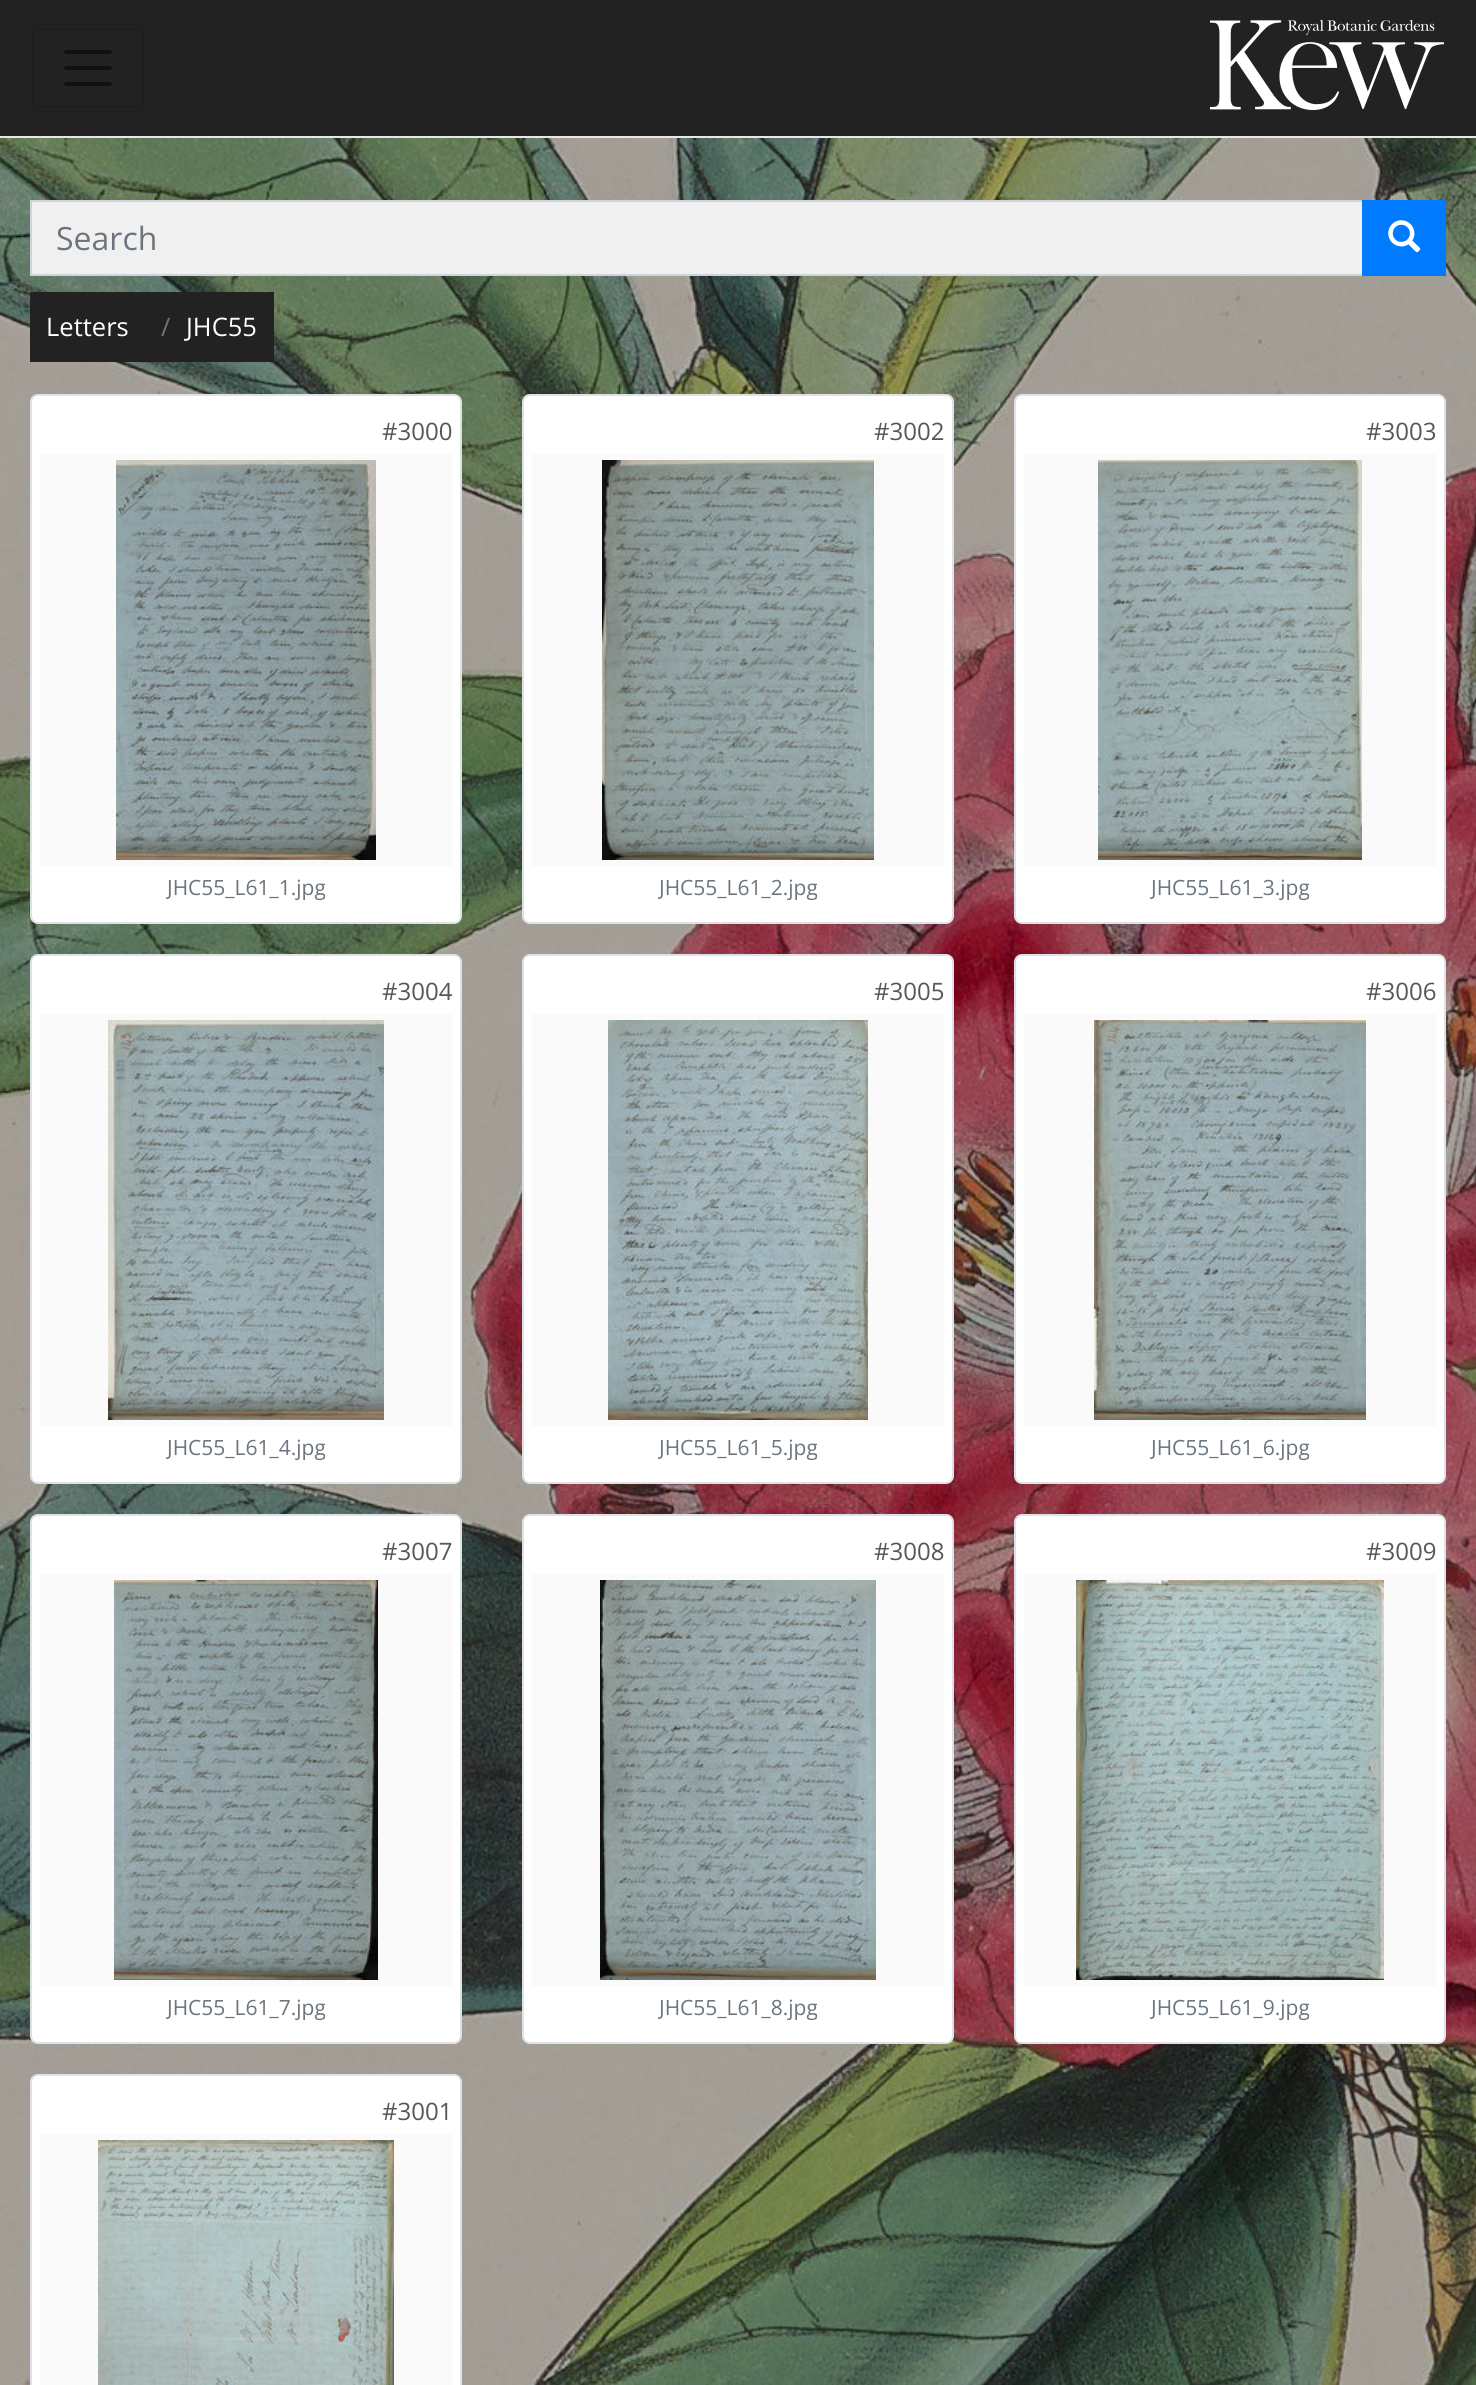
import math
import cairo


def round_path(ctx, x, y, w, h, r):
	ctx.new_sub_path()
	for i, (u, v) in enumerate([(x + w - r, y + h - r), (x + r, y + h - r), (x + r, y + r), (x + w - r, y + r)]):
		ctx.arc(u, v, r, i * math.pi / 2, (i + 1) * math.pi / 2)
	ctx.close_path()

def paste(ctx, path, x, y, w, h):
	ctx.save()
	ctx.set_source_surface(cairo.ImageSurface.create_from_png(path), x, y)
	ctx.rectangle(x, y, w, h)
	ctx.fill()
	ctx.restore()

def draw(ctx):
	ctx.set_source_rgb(1, 1, 1)
	ctx.paint()
	paste(ctx, 'media/1.png', 0, 138, 1476, 2247)
	ctx.set_source_rgb(0.133, 0.133, 0.133)
	ctx.rectangle(0, 0, 1476, 136)
	ctx.fill()
	ctx.set_source_rgb(0.906, 0.906, 0.906)
	ctx.rectangle(0, 136, 1476, 2)
	ctx.fill()
	ctx.rectangle(33, 29, 110, 78)
	ctx.set_source_rgb(0.122, 0.122, 0.122)
	ctx.stroke()
	ctx.new_path()
	ctx.move_to(66, 52)
	ctx.line_to(110, 52)
	ctx.move_to(66, 68)
	ctx.line_to(110, 68)
	ctx.move_to(66, 84)
	ctx.line_to(110, 84)
	ctx.set_source_rgb(0.067, 0.067, 0.067)
	ctx.set_line_width(4)
	ctx.set_line_cap(cairo.LINE_CAP_ROUND)
	ctx.stroke()
	paste(ctx, 'media/2.png', 1210, 20, 234, 90)
	ctx.set_source_rgb(0.941, 0.941, 0.941)
	ctx.rectangle(31, 201, 1332, 74)
	ctx.fill_preserve()
	ctx.set_source_rgb(0.808, 0.831, 0.855)
	ctx.set_line_width(2)
	ctx.set_line_cap(cairo.LINE_CAP_BUTT)
	ctx.stroke()
	ctx.select_font_face('Open Sans')
	ctx.set_font_size(32)
	ctx.set_source_rgb(0.424, 0.459, 0.49)
	ctx.move_to(56, 250)
	ctx.show_text('Search')
	ctx.set_source_rgb(0, 0.482, 1)
	ctx.rectangle(1362, 200, 84, 76)
	ctx.fill()
	paste(ctx, 'media/3.png', 1388, 220, 33, 33)
	ctx.set_source_rgb(0.133, 0.133, 0.133)
	ctx.rectangle(30, 292, 244, 70)
	ctx.fill()
	ctx.set_font_size(25.5)
	ctx.set_source_rgb(1, 1, 1)
	ctx.move_to(46, 336)
	ctx.show_text('Letters')
	ctx.set_source_rgb(0.424, 0.459, 0.49)
	ctx.move_to(161, 336)
	ctx.show_text('/')
	ctx.set_source_rgb(1, 1, 1)
	ctx.move_to(186, 336)
	ctx.show_text('JHC55')
	round_path(ctx, 31, 395, 430, 528, 7)
	ctx.fill_preserve()
	ctx.set_source_rgb(0.871, 0.886, 0.902)
	ctx.stroke()
	ctx.set_font_size(24)
	ctx.set_source_rgb(0.341, 0.341, 0.341)
	ctx.move_to(382, 440)
	ctx.show_text('#3000')
	ctx.set_source_rgb(0.98, 0.98, 0.98)
	ctx.rectangle(40, 454, 412, 412)
	ctx.fill()
	paste(ctx, 'media/4.png', 116, 460, 260, 400)
	ctx.save()
	ctx.rectangle(166, 874, 160, 30)
	ctx.clip()
	ctx.set_font_size(21)
	ctx.set_source_rgb(0.424, 0.459, 0.49)
	ctx.move_to(167, 895)
	ctx.show_text('JHC55_L61_1.jpg')
	ctx.restore()
	ctx.set_source_rgb(1, 1, 1)
	round_path(ctx, 523, 395, 430, 528, 7)
	ctx.fill_preserve()
	ctx.set_source_rgb(0.871, 0.886, 0.902)
	ctx.stroke()
	ctx.set_source_rgb(0.341, 0.341, 0.341)
	ctx.move_to(874, 440)
	ctx.show_text('#3002')
	ctx.set_source_rgb(0.98, 0.98, 0.98)
	ctx.rectangle(532, 454, 412, 412)
	ctx.fill()
	paste(ctx, 'media/5.png', 602, 460, 272, 400)
	ctx.save()
	ctx.rectangle(658, 874, 160, 30)
	ctx.clip()
	ctx.set_font_size(21)
	ctx.set_source_rgb(0.424, 0.459, 0.49)
	ctx.move_to(659, 895)
	ctx.show_text('JHC55_L61_2.jpg')
	ctx.restore()
	ctx.set_source_rgb(1, 1, 1)
	round_path(ctx, 1015, 395, 430, 528, 7)
	ctx.fill_preserve()
	ctx.set_source_rgb(0.871, 0.886, 0.902)
	ctx.stroke()
	ctx.set_source_rgb(0.341, 0.341, 0.341)
	ctx.move_to(1366, 440)
	ctx.show_text('#3003')
	ctx.set_source_rgb(0.98, 0.98, 0.98)
	ctx.rectangle(1024, 454, 412, 412)
	ctx.fill()
	paste(ctx, 'media/6.png', 1098, 460, 264, 400)
	ctx.save()
	ctx.rectangle(1150, 874, 160, 30)
	ctx.clip()
	ctx.set_font_size(21)
	ctx.set_source_rgb(0.424, 0.459, 0.49)
	ctx.move_to(1151, 895)
	ctx.show_text('JHC55_L61_3.jpg')
	ctx.restore()
	ctx.set_source_rgb(1, 1, 1)
	round_path(ctx, 31, 955, 430, 528, 7)
	ctx.fill_preserve()
	ctx.set_source_rgb(0.871, 0.886, 0.902)
	ctx.stroke()
	ctx.set_source_rgb(0.341, 0.341, 0.341)
	ctx.move_to(382, 1000)
	ctx.show_text('#3004')
	ctx.set_source_rgb(0.98, 0.98, 0.98)
	ctx.rectangle(40, 1014, 412, 412)
	ctx.fill()
	paste(ctx, 'media/7.png', 108, 1020, 276, 400)
	ctx.save()
	ctx.rectangle(166, 1434, 160, 30)
	ctx.clip()
	ctx.set_font_size(21)
	ctx.set_source_rgb(0.424, 0.459, 0.49)
	ctx.move_to(167, 1455)
	ctx.show_text('JHC55_L61_4.jpg')
	ctx.restore()
	ctx.set_source_rgb(1, 1, 1)
	round_path(ctx, 523, 955, 430, 528, 7)
	ctx.fill_preserve()
	ctx.set_source_rgb(0.871, 0.886, 0.902)
	ctx.stroke()
	ctx.set_source_rgb(0.341, 0.341, 0.341)
	ctx.move_to(874, 1000)
	ctx.show_text('#3005')
	ctx.set_source_rgb(0.98, 0.98, 0.98)
	ctx.rectangle(532, 1014, 412, 412)
	ctx.fill()
	paste(ctx, 'media/8.png', 608, 1020, 260, 400)
	ctx.save()
	ctx.rectangle(658, 1434, 160, 30)
	ctx.clip()
	ctx.set_font_size(21)
	ctx.set_source_rgb(0.424, 0.459, 0.49)
	ctx.move_to(659, 1455)
	ctx.show_text('JHC55_L61_5.jpg')
	ctx.restore()
	ctx.set_source_rgb(1, 1, 1)
	round_path(ctx, 1015, 955, 430, 528, 7)
	ctx.fill_preserve()
	ctx.set_source_rgb(0.871, 0.886, 0.902)
	ctx.stroke()
	ctx.set_source_rgb(0.341, 0.341, 0.341)
	ctx.move_to(1366, 1000)
	ctx.show_text('#3006')
	ctx.set_source_rgb(0.98, 0.98, 0.98)
	ctx.rectangle(1024, 1014, 412, 412)
	ctx.fill()
	paste(ctx, 'media/9.png', 1094, 1020, 272, 400)
	ctx.save()
	ctx.rectangle(1150, 1434, 160, 30)
	ctx.clip()
	ctx.set_font_size(21)
	ctx.set_source_rgb(0.424, 0.459, 0.49)
	ctx.move_to(1151, 1455)
	ctx.show_text('JHC55_L61_6.jpg')
	ctx.restore()
	ctx.set_source_rgb(1, 1, 1)
	round_path(ctx, 31, 1515, 430, 528, 7)
	ctx.fill_preserve()
	ctx.set_source_rgb(0.871, 0.886, 0.902)
	ctx.stroke()
	ctx.set_source_rgb(0.341, 0.341, 0.341)
	ctx.move_to(382, 1560)
	ctx.show_text('#3007')
	ctx.set_source_rgb(0.98, 0.98, 0.98)
	ctx.rectangle(40, 1574, 412, 412)
	ctx.fill()
	paste(ctx, 'media/10.png', 114, 1580, 264, 400)
	ctx.save()
	ctx.rectangle(166, 1994, 160, 30)
	ctx.clip()
	ctx.set_font_size(21)
	ctx.set_source_rgb(0.424, 0.459, 0.49)
	ctx.move_to(167, 2015)
	ctx.show_text('JHC55_L61_7.jpg')
	ctx.restore()
	ctx.set_source_rgb(1, 1, 1)
	round_path(ctx, 523, 1515, 430, 528, 7)
	ctx.fill_preserve()
	ctx.set_source_rgb(0.871, 0.886, 0.902)
	ctx.stroke()
	ctx.set_source_rgb(0.341, 0.341, 0.341)
	ctx.move_to(874, 1560)
	ctx.show_text('#3008')
	ctx.set_source_rgb(0.98, 0.98, 0.98)
	ctx.rectangle(532, 1574, 412, 412)
	ctx.fill()
	paste(ctx, 'media/11.png', 600, 1580, 276, 400)
	ctx.save()
	ctx.rectangle(658, 1994, 160, 30)
	ctx.clip()
	ctx.set_font_size(21)
	ctx.set_source_rgb(0.424, 0.459, 0.49)
	ctx.move_to(659, 2015)
	ctx.show_text('JHC55_L61_8.jpg')
	ctx.restore()
	ctx.set_source_rgb(1, 1, 1)
	round_path(ctx, 1015, 1515, 430, 528, 7)
	ctx.fill_preserve()
	ctx.set_source_rgb(0.871, 0.886, 0.902)
	ctx.stroke()
	ctx.set_source_rgb(0.341, 0.341, 0.341)
	ctx.move_to(1366, 1560)
	ctx.show_text('#3009')
	ctx.set_source_rgb(0.98, 0.98, 0.98)
	ctx.rectangle(1024, 1574, 412, 412)
	ctx.fill()
	paste(ctx, 'media/12.png', 1076, 1580, 308, 400)
	ctx.save()
	ctx.rectangle(1150, 1994, 160, 30)
	ctx.clip()
	ctx.set_font_size(21)
	ctx.set_source_rgb(0.424, 0.459, 0.49)
	ctx.move_to(1151, 2015)
	ctx.show_text('JHC55_L61_9.jpg')
	ctx.restore()
	ctx.set_source_rgb(1, 1, 1)
	round_path(ctx, 31, 2075, 430, 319, 7)
	ctx.fill_preserve()
	ctx.set_source_rgb(0.871, 0.886, 0.902)
	ctx.stroke()
	ctx.set_source_rgb(0.341, 0.341, 0.341)
	ctx.move_to(382, 2120)
	ctx.show_text('#3001')
	ctx.set_source_rgb(0.98, 0.98, 0.98)
	ctx.rectangle(40, 2134, 412, 251)
	ctx.fill()
	paste(ctx, 'media/13.png', 98, 2140, 296, 245)


surface = cairo.ImageSurface(cairo.FORMAT_RGB24, 1476, 2385)
ctx = cairo.Context(surface)
options = cairo.FontOptions()
options.set_hint_metrics(cairo.HINT_METRICS_OFF)
options.set_hint_style(cairo.HINT_STYLE_NONE)
ctx.set_font_options(options)
ctx.set_miter_limit(4)
draw(ctx)
surface.write_to_png('image.png')
